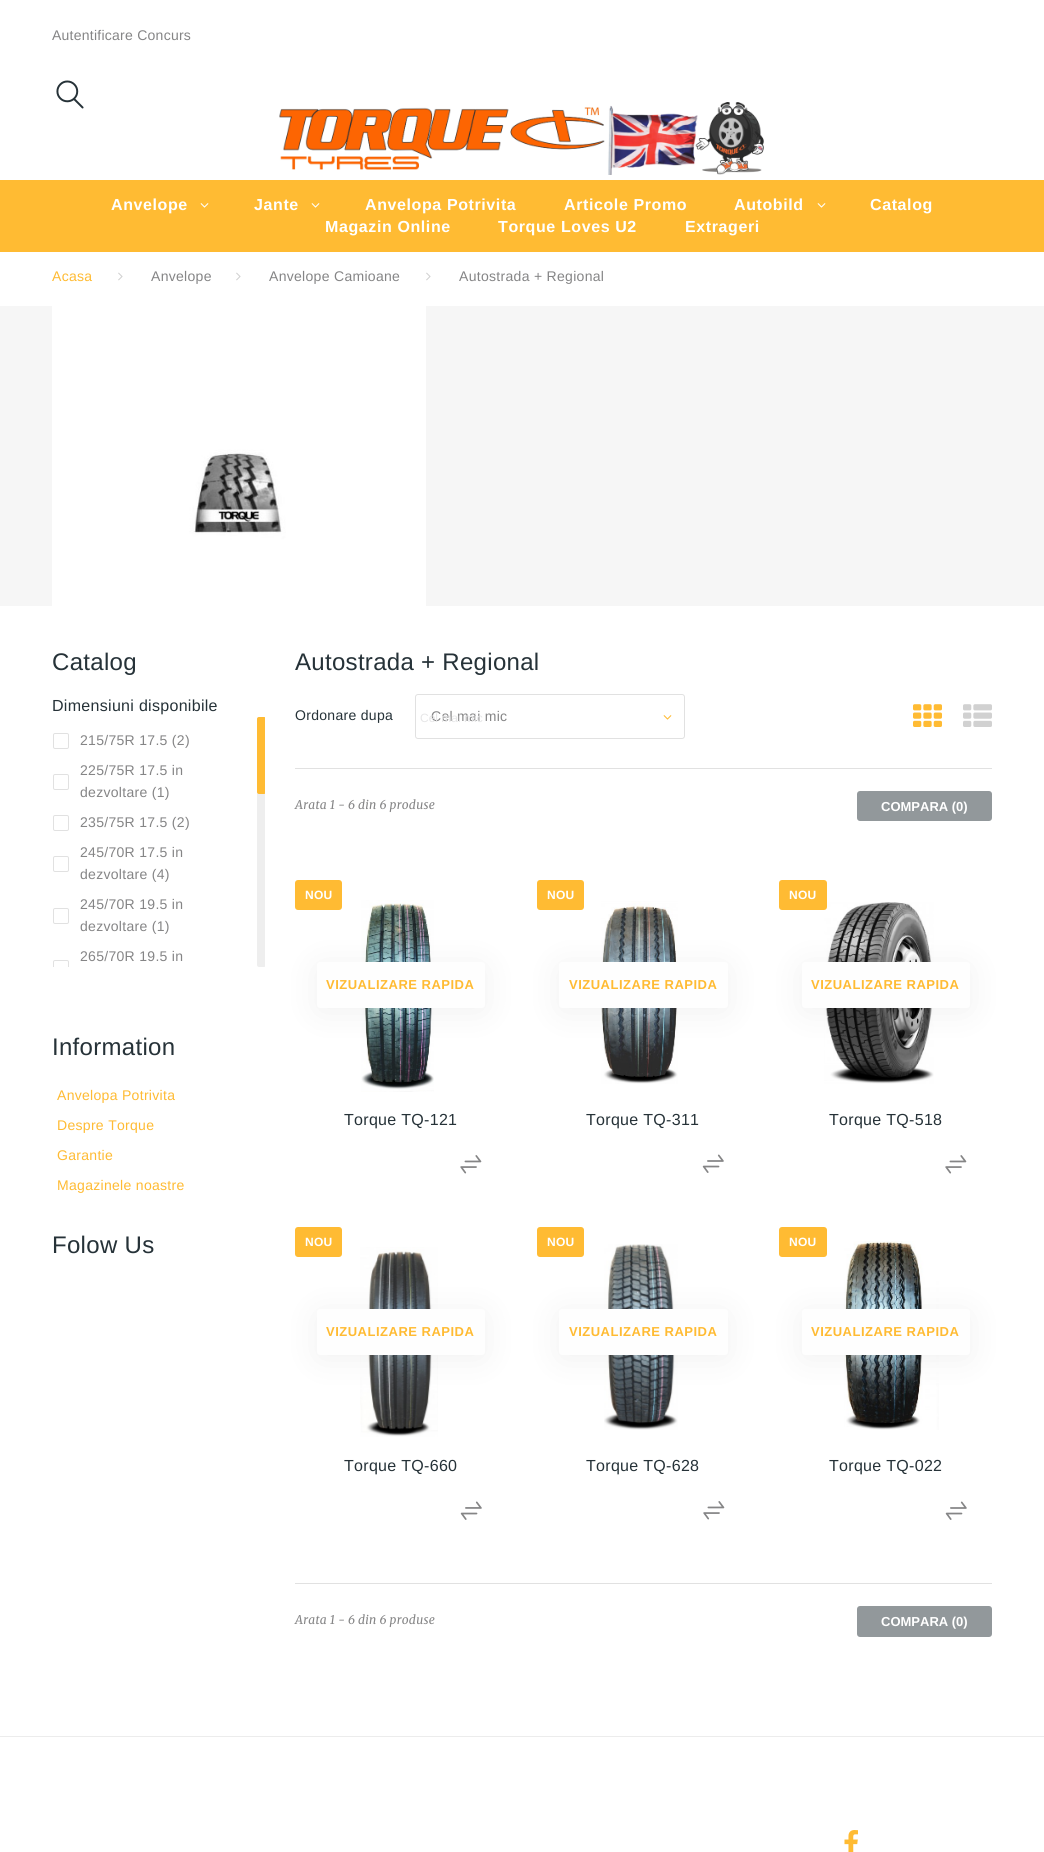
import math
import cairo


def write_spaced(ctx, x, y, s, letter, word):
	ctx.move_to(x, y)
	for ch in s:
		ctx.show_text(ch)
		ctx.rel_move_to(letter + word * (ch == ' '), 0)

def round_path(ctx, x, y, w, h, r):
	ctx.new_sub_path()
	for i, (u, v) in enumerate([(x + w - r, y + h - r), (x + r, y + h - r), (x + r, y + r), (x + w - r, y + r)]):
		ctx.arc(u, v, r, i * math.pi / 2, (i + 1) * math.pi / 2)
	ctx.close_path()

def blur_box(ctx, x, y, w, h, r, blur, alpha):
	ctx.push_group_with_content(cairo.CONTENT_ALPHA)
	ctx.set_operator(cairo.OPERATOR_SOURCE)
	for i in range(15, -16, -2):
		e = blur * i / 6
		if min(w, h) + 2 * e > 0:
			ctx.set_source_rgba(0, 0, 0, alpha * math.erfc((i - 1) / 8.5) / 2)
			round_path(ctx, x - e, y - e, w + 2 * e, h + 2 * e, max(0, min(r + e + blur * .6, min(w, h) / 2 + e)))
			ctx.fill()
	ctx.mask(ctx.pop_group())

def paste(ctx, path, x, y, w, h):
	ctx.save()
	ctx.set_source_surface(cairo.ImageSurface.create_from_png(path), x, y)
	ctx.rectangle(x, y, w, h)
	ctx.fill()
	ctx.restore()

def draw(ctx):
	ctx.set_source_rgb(1, 1, 1)
	ctx.paint()
	ctx.select_font_face('Arimo')
	ctx.set_font_size(14)
	ctx.set_source_rgb(0.522, 0.522, 0.525)
	write_spaced(ctx, 52, 40, 'Autentificare Concurs', 0.25, 0)
	paste(ctx, 'media/1.png', 56, 80, 28, 29)
	paste(ctx, 'media/2.png', 279, 102, 485, 73)
	ctx.set_source_rgb(1, 0.733, 0.2)
	ctx.rectangle(0, 180, 1044, 72)
	ctx.fill()
	ctx.select_font_face('Arimo', cairo.FONT_SLANT_NORMAL, cairo.FONT_WEIGHT_BOLD)
	ctx.set_font_size(16)
	ctx.set_source_rgb(1, 1, 1)
	write_spaced(ctx, 111, 210, 'Anvelope', 0.6, 0)
	paste(ctx, 'media/3.png', 200, 203, 9, 5)
	write_spaced(ctx, 254, 210, 'Jante', 0.6, 0)
	paste(ctx, 'media/3.png', 311, 203, 9, 5)
	for x, y, s in [
		(365, 210, 'Anvelopa Potrivita'),
		(564, 210, 'Articole Promo'),
		(734, 210, 'Autobild'),
	]:
		write_spaced(ctx, x, y, s, 0.6, 0)
	paste(ctx, 'media/3.png', 817, 203, 9, 5)
	for x, y, s in [
		(870, 210, 'Catalog'),
		(325, 232, 'Magazin Online'),
		(498, 232, 'Torque Loves U2'),
		(685, 232, 'Extrageri'),
	]:
		write_spaced(ctx, x, y, s, 0.6, 0)
	ctx.select_font_face('Arimo')
	ctx.set_font_size(14)
	ctx.set_source_rgb(1, 0.733, 0.2)
	write_spaced(ctx, 52, 281, 'Acasa', 0.3, 0)
	paste(ctx, 'media/4.png', 118, 272, 5, 9)
	ctx.set_source_rgb(0.522, 0.522, 0.525)
	write_spaced(ctx, 151, 281, 'Anvelope', 0.3, 0)
	paste(ctx, 'media/4.png', 236, 272, 5, 9)
	write_spaced(ctx, 269, 281, 'Anvelope Camioane', 0.3, 0)
	paste(ctx, 'media/4.png', 426, 272, 5, 9)
	write_spaced(ctx, 459, 281, 'Autostrada + Regional', 0.3, 0)
	ctx.set_source_rgb(0.961, 0.961, 0.961)
	ctx.rectangle(0, 306, 1044, 300)
	ctx.fill()
	paste(ctx, 'media/5.png', 52, 306, 374, 300)
	ctx.set_font_size(24)
	ctx.set_source_rgb(0.149, 0.196, 0.22)
	write_spaced(ctx, 52, 670, 'Catalog', 0.3, 0)
	ctx.set_font_size(16)
	write_spaced(ctx, 52, 711, 'Dimensiuni disponibile', 0.3, 0)
	round_path(ctx, 53.5, 733.5, 15, 15, 1.5)
	ctx.set_source_rgb(0.882, 0.882, 0.882)
	ctx.set_line_width(1)
	ctx.stroke()
	ctx.set_font_size(14)
	ctx.set_source_rgb(0.522, 0.522, 0.525)
	write_spaced(ctx, 80, 745, '215/75R 17.5 (2)', 0.3, 0)
	write_spaced(ctx, 80, 775, '225/75R 17.5 in', 0.3, 0)
	round_path(ctx, 53.5, 774.5, 15, 15, 1.5)
	ctx.set_source_rgb(0.882, 0.882, 0.882)
	ctx.stroke()
	ctx.set_source_rgb(0.522, 0.522, 0.525)
	write_spaced(ctx, 80, 797, 'dezvoltare (1)', 0.3, 0)
	round_path(ctx, 53.5, 815.5, 15, 15, 1.5)
	ctx.set_source_rgb(0.882, 0.882, 0.882)
	ctx.stroke()
	ctx.set_source_rgb(0.522, 0.522, 0.525)
	write_spaced(ctx, 80, 827, '235/75R 17.5 (2)', 0.3, 0)
	write_spaced(ctx, 80, 857, '245/70R 17.5 in', 0.3, 0)
	round_path(ctx, 53.5, 856.5, 15, 15, 1.5)
	ctx.set_source_rgb(0.882, 0.882, 0.882)
	ctx.stroke()
	ctx.set_source_rgb(0.522, 0.522, 0.525)
	write_spaced(ctx, 80, 879, 'dezvoltare (4)', 0.3, 0)
	write_spaced(ctx, 80, 909, '245/70R 19.5 in', 0.3, 0)
	round_path(ctx, 53.5, 908.5, 15, 15, 1.5)
	ctx.set_source_rgb(0.882, 0.882, 0.882)
	ctx.stroke()
	ctx.set_source_rgb(0.522, 0.522, 0.525)
	write_spaced(ctx, 80, 931, 'dezvoltare (1)', 0.3, 0)
	write_spaced(ctx, 80, 961, '265/70R 19.5 in', 0.3, 0)
	ctx.save()
	ctx.rectangle(52, 717, 213, 250)
	ctx.clip()
	round_path(ctx, 53.5, 960.5, 15, 15, 1.5)
	ctx.set_source_rgb(0.882, 0.882, 0.882)
	ctx.stroke()
	ctx.restore()
	ctx.save()
	ctx.rectangle(52, 695, 213, 281)
	ctx.clip()
	ctx.set_source_rgb(0.933, 0.933, 0.933)
	round_path(ctx, 257, 717, 9, 250, 2)
	ctx.fill()
	ctx.set_source_rgb(1, 0.733, 0.2)
	round_path(ctx, 257, 717, 9, 77, 2)
	ctx.fill()
	ctx.restore()
	ctx.set_font_size(24)
	ctx.set_source_rgb(0.149, 0.196, 0.22)
	write_spaced(ctx, 52, 1055, 'Information', 0.3, 0)
	ctx.set_font_size(14)
	ctx.set_source_rgb(1, 0.733, 0.2)
	for x, y, s in [
		(57, 1100, 'Anvelopa Potrivita'),
		(57, 1130, 'Despre Torque'),
		(57, 1160, 'Garantie'),
		(57, 1190, 'Magazinele noastre'),
	]:
		write_spaced(ctx, x, y, s, 0.3, 0)
	ctx.set_font_size(24)
	ctx.set_source_rgb(0.149, 0.196, 0.22)
	write_spaced(ctx, 52, 1253, 'Folow Us', 0.3, 0)
	write_spaced(ctx, 295, 670, 'Autostrada + Regional', 0.3, 0)
	ctx.set_font_size(14)
	write_spaced(ctx, 295, 720, 'Ordonare dupa', 0.3, 0)
	round_path(ctx, 415.5, 694.5, 269, 44, 2.5)
	ctx.set_source_rgb(0.882, 0.882, 0.882)
	ctx.stroke()
	ctx.set_source_rgb(0.522, 0.522, 0.525)
	write_spaced(ctx, 431, 721, 'Cel mai mic', 0.3, 0)
	paste(ctx, 'media/6.png', 663, 715, 9, 5)
	ctx.new_path()
	ctx.move_to(672, 715.5)
	ctx.line_to(676, 719.5)
	ctx.line_to(680, 715.5)
	ctx.set_source_rgb(1, 1, 1)
	ctx.set_line_width(2)
	ctx.stroke()
	ctx.set_font_size(12)
	ctx.set_source_rgb(0.902, 0.902, 0.906)
	ctx.move_to(420, 722)
	ctx.show_text('Cel mai mic')
	paste(ctx, 'media/7.png', 913, 704, 29, 23)
	paste(ctx, 'media/8.png', 963, 704, 29, 23)
	ctx.set_source_rgb(0.882, 0.882, 0.882)
	ctx.rectangle(295, 768, 697, 1)
	ctx.fill()
	ctx.select_font_face('Merriweather', cairo.FONT_SLANT_ITALIC)
	ctx.set_source_rgb(0.522, 0.522, 0.525)
	write_spaced(ctx, 295, 809, 'Arata 1 - 6 din 6 produse', 0.25, 0)
	ctx.set_source_rgb(0.573, 0.596, 0.608)
	round_path(ctx, 857, 791, 135, 30, 3)
	ctx.fill()
	ctx.select_font_face('Arimo', cairo.FONT_SLANT_NORMAL, cairo.FONT_WEIGHT_BOLD)
	ctx.set_font_size(13)
	ctx.set_source_rgb(1, 1, 1)
	ctx.move_to(881, 811)
	ctx.show_text('COMPARA (0)')
	ctx.set_source_rgb(1, 0.733, 0.2)
	round_path(ctx, 295, 880, 47, 30, 3)
	ctx.fill()
	ctx.set_font_size(12)
	ctx.set_source_rgb(1, 1, 1)
	write_spaced(ctx, 305, 899, 'NOU', 0.25, 0)
	paste(ctx, 'media/9.png', 361, 900, 73, 192)
	ctx.set_source_rgb(0, 0, 0)
	blur_box(ctx, 317, 966, 168, 46, 3, 17.5, 0.06)
	ctx.set_source_rgb(0.996, 0.996, 0.996)
	round_path(ctx, 317, 962, 168, 46, 3)
	ctx.fill()
	ctx.set_font_size(13)
	ctx.set_source_rgb(1, 0.733, 0.2)
	write_spaced(ctx, 326, 989, 'VIZUALIZARE RAPIDA', 0.5, 0)
	ctx.select_font_face('Arimo')
	ctx.set_font_size(16)
	ctx.set_source_rgb(0.149, 0.196, 0.22)
	write_spaced(ctx, 344, 1125, 'Torque TQ-121', 0.3, 0)
	paste(ctx, 'media/10.png', 460, 1155, 22, 19)
	ctx.set_source_rgb(1, 0.733, 0.2)
	round_path(ctx, 537, 880, 47, 30, 3)
	ctx.fill()
	ctx.select_font_face('Arimo', cairo.FONT_SLANT_NORMAL, cairo.FONT_WEIGHT_BOLD)
	ctx.set_font_size(12)
	ctx.set_source_rgb(1, 1, 1)
	write_spaced(ctx, 547, 899, 'NOU', 0.25, 0)
	paste(ctx, 'media/11.png', 601, 901, 77, 183)
	ctx.set_source_rgb(0, 0, 0)
	blur_box(ctx, 559, 966, 169, 46, 3, 17.5, 0.06)
	ctx.set_source_rgb(0.996, 0.996, 0.996)
	round_path(ctx, 559, 962, 169, 46, 3)
	ctx.fill()
	ctx.set_font_size(13)
	ctx.set_source_rgb(1, 0.733, 0.2)
	write_spaced(ctx, 569, 989, 'VIZUALIZARE RAPIDA', 0.5, 0)
	ctx.select_font_face('Arimo')
	ctx.set_font_size(16)
	ctx.set_source_rgb(0.149, 0.196, 0.22)
	write_spaced(ctx, 586, 1125, 'Torque TQ-311', 0.3, 0)
	paste(ctx, 'media/12.png', 702, 1154, 22, 19)
	paste(ctx, 'media/13.png', 824, 902, 110, 182)
	ctx.set_source_rgb(1, 0.733, 0.2)
	round_path(ctx, 779, 880, 48, 30, 3)
	ctx.fill()
	ctx.select_font_face('Arimo', cairo.FONT_SLANT_NORMAL, cairo.FONT_WEIGHT_BOLD)
	ctx.set_font_size(12)
	ctx.set_source_rgb(1, 1, 1)
	write_spaced(ctx, 789, 899, 'NOU', 0.25, 0)
	ctx.set_source_rgb(0, 0, 0)
	blur_box(ctx, 802, 966, 168, 46, 3, 17.5, 0.06)
	ctx.set_source_rgb(0.996, 0.996, 0.996)
	round_path(ctx, 802, 962, 168, 46, 3)
	ctx.fill()
	ctx.set_font_size(13)
	ctx.set_source_rgb(1, 0.733, 0.2)
	write_spaced(ctx, 811, 989, 'VIZUALIZARE RAPIDA', 0.5, 0)
	ctx.select_font_face('Arimo')
	ctx.set_font_size(16)
	ctx.set_source_rgb(0.149, 0.196, 0.22)
	write_spaced(ctx, 829, 1125, 'Torque TQ-518', 0.3, 0)
	paste(ctx, 'media/14.png', 945, 1155, 22, 19)
	ctx.set_source_rgb(1, 0.733, 0.2)
	round_path(ctx, 295, 1227, 47, 30, 3)
	ctx.fill()
	ctx.select_font_face('Arimo', cairo.FONT_SLANT_NORMAL, cairo.FONT_WEIGHT_BOLD)
	ctx.set_font_size(12)
	ctx.set_source_rgb(1, 1, 1)
	write_spaced(ctx, 305, 1246, 'NOU', 0.25, 0)
	paste(ctx, 'media/15.png', 360, 1247, 78, 190)
	ctx.set_source_rgb(0, 0, 0)
	blur_box(ctx, 317, 1313, 168, 46, 3, 17.5, 0.06)
	ctx.set_source_rgb(0.996, 0.996, 0.996)
	round_path(ctx, 317, 1309, 168, 46, 3)
	ctx.fill()
	ctx.set_font_size(13)
	ctx.set_source_rgb(1, 0.733, 0.2)
	write_spaced(ctx, 326, 1336, 'VIZUALIZARE RAPIDA', 0.5, 0)
	ctx.select_font_face('Arimo')
	ctx.set_font_size(16)
	ctx.set_source_rgb(0.149, 0.196, 0.22)
	write_spaced(ctx, 344, 1471, 'Torque TQ-660', 0.3, 0)
	paste(ctx, 'media/16.png', 460, 1501, 22, 19)
	ctx.set_source_rgb(1, 0.733, 0.2)
	round_path(ctx, 537, 1227, 47, 30, 3)
	ctx.fill()
	ctx.select_font_face('Arimo', cairo.FONT_SLANT_NORMAL, cairo.FONT_WEIGHT_BOLD)
	ctx.set_font_size(12)
	ctx.set_source_rgb(1, 1, 1)
	write_spaced(ctx, 547, 1246, 'NOU', 0.25, 0)
	paste(ctx, 'media/17.png', 604, 1244, 74, 186)
	ctx.set_source_rgb(0, 0, 0)
	blur_box(ctx, 559, 1313, 169, 46, 3, 17.5, 0.06)
	ctx.set_source_rgb(0.996, 0.996, 0.996)
	round_path(ctx, 559, 1309, 169, 46, 3)
	ctx.fill()
	ctx.set_font_size(13)
	ctx.set_source_rgb(1, 0.733, 0.2)
	write_spaced(ctx, 569, 1336, 'VIZUALIZARE RAPIDA', 0.5, 0)
	ctx.select_font_face('Arimo')
	ctx.set_font_size(16)
	ctx.set_source_rgb(0.149, 0.196, 0.22)
	write_spaced(ctx, 586, 1471, 'Torque TQ-628', 0.3, 0)
	paste(ctx, 'media/18.png', 703, 1501, 22, 19)
	ctx.set_source_rgb(1, 0.733, 0.2)
	round_path(ctx, 779, 1227, 48, 30, 3)
	ctx.fill()
	ctx.select_font_face('Arimo', cairo.FONT_SLANT_NORMAL, cairo.FONT_WEIGHT_BOLD)
	ctx.set_font_size(12)
	ctx.set_source_rgb(1, 1, 1)
	write_spaced(ctx, 789, 1246, 'NOU', 0.25, 0)
	paste(ctx, 'media/19.png', 844, 1241, 95, 189)
	ctx.set_source_rgb(0, 0, 0)
	blur_box(ctx, 802, 1313, 168, 46, 3, 17.5, 0.06)
	ctx.set_source_rgb(0.996, 0.996, 0.996)
	round_path(ctx, 802, 1309, 168, 46, 3)
	ctx.fill()
	ctx.set_font_size(13)
	ctx.set_source_rgb(1, 0.733, 0.2)
	write_spaced(ctx, 811, 1336, 'VIZUALIZARE RAPIDA', 0.5, 0)
	ctx.select_font_face('Arimo')
	ctx.set_font_size(16)
	ctx.set_source_rgb(0.149, 0.196, 0.22)
	write_spaced(ctx, 829, 1471, 'Torque TQ-022', 0.3, 0)
	paste(ctx, 'media/20.png', 945, 1501, 22, 19)
	ctx.set_source_rgb(0.882, 0.882, 0.882)
	ctx.rectangle(295, 1583, 697, 1)
	ctx.fill()
	ctx.select_font_face('Merriweather', cairo.FONT_SLANT_ITALIC)
	ctx.set_font_size(12)
	ctx.set_source_rgb(0.522, 0.522, 0.525)
	write_spaced(ctx, 295, 1624, 'Arata 1 - 6 din 6 produse', 0.25, 0)
	ctx.set_source_rgb(0.573, 0.596, 0.608)
	round_path(ctx, 857, 1606, 135, 31, 3)
	ctx.fill()
	ctx.select_font_face('Arimo', cairo.FONT_SLANT_NORMAL, cairo.FONT_WEIGHT_BOLD)
	ctx.set_font_size(13)
	ctx.set_source_rgb(1, 1, 1)
	ctx.move_to(881, 1626)
	ctx.show_text('COMPARA (0)')
	ctx.set_source_rgb(0.922, 0.922, 0.922)
	ctx.rectangle(0, 1736, 1044, 1)
	ctx.fill()
	paste(ctx, 'media/21.png', 844, 1830, 14, 22)


surface = cairo.ImageSurface(cairo.FORMAT_RGB24, 1044, 1852)
ctx = cairo.Context(surface)
options = cairo.FontOptions()
options.set_hint_metrics(cairo.HINT_METRICS_OFF)
options.set_hint_style(cairo.HINT_STYLE_NONE)
ctx.set_font_options(options)
ctx.set_miter_limit(4)
draw(ctx)
surface.write_to_png('image.png')
